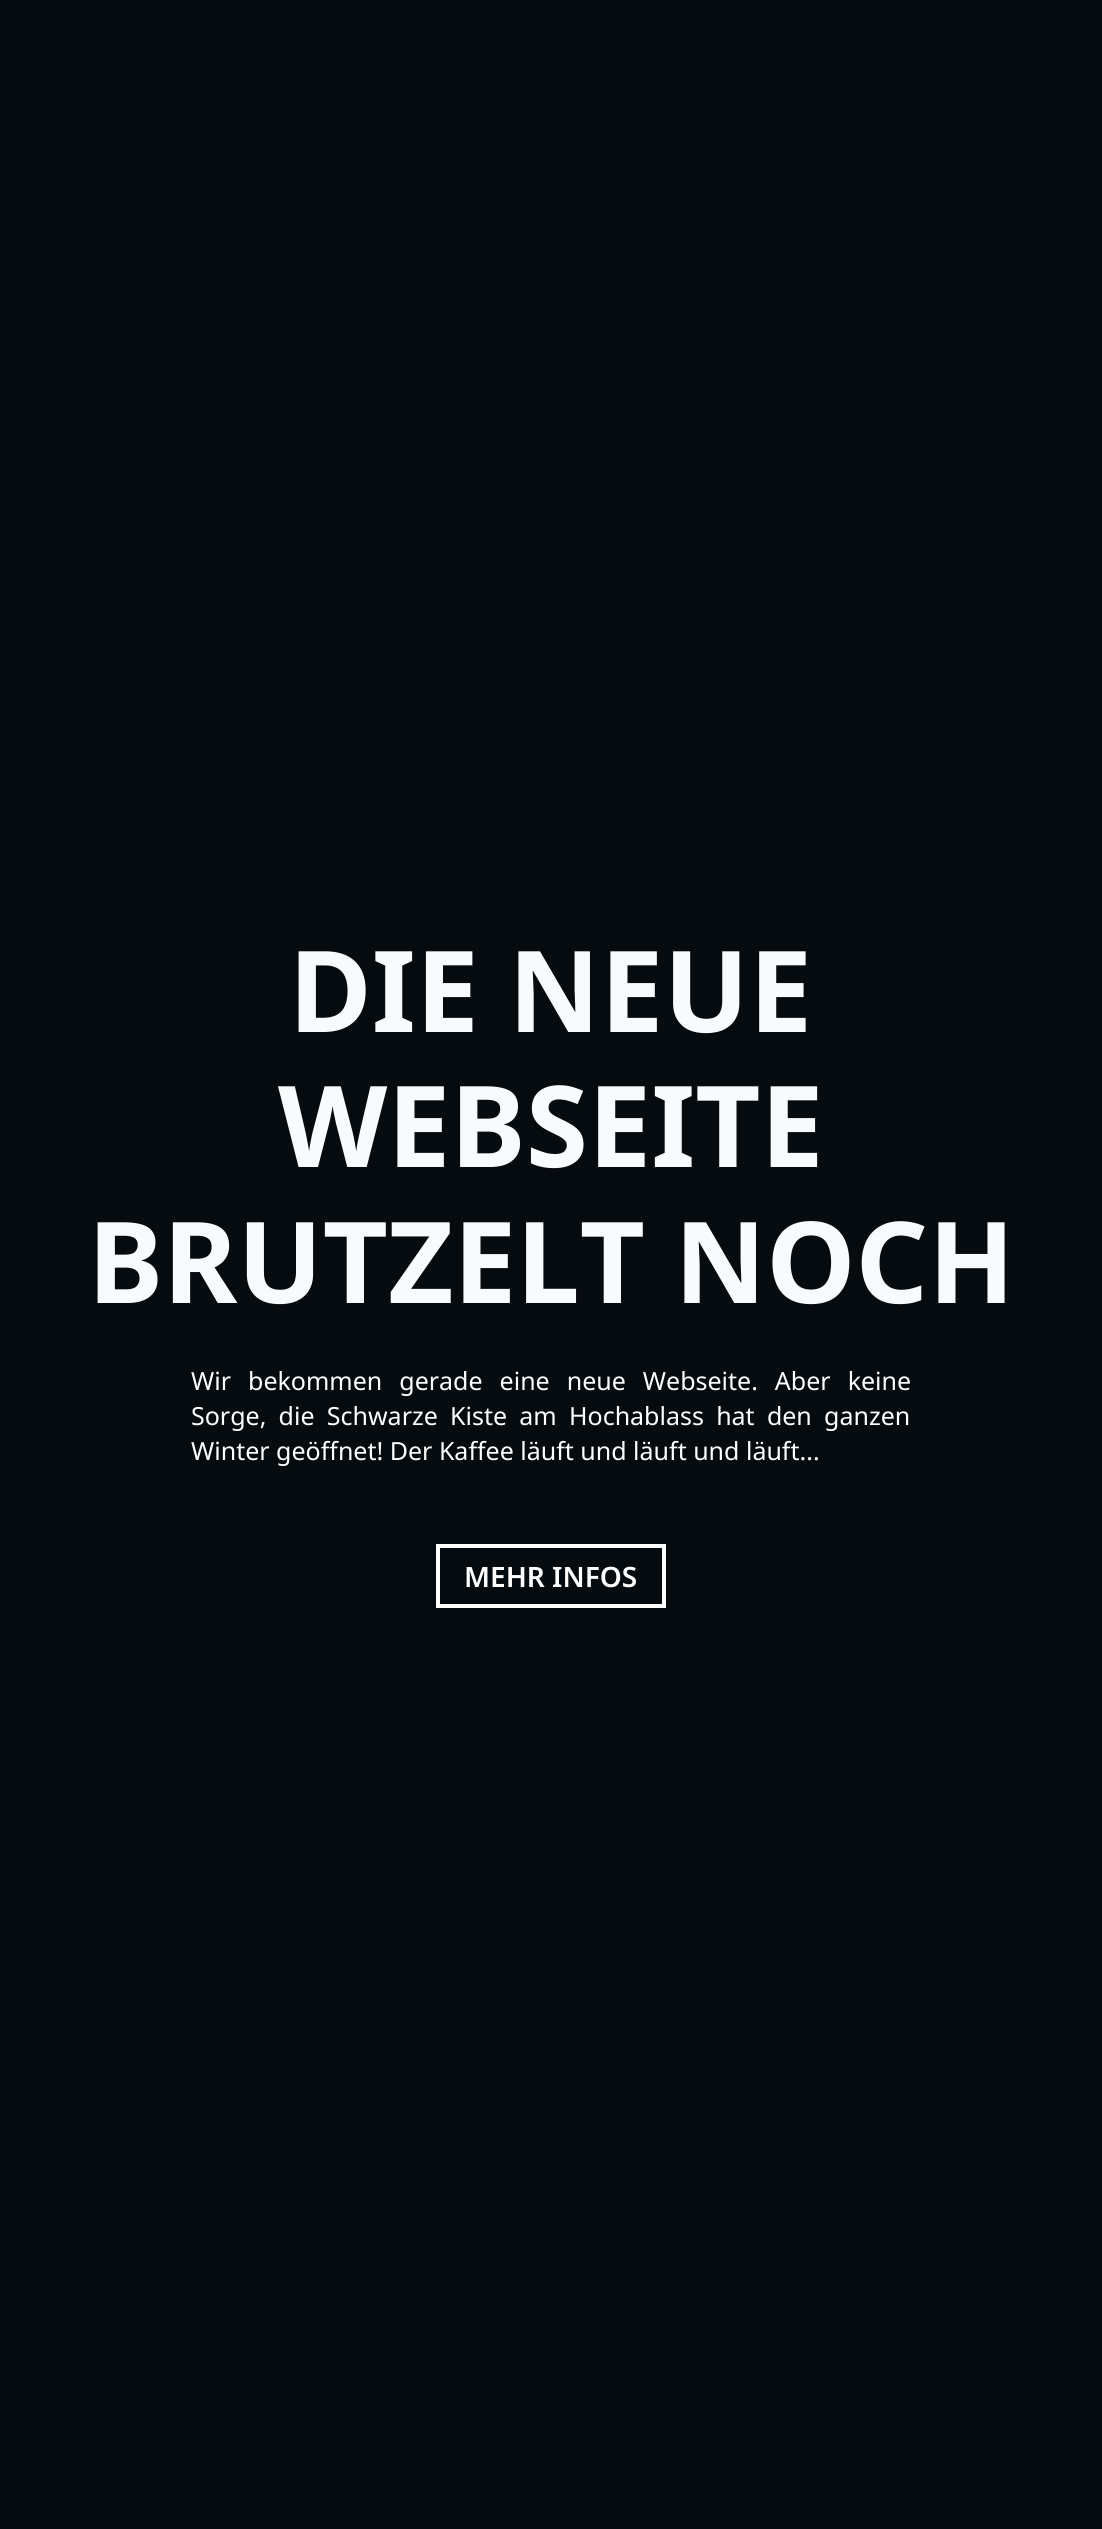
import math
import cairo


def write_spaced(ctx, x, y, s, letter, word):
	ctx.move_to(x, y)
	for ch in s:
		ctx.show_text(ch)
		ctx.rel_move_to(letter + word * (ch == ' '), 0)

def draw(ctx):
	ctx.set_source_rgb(0.027, 0.043, 0.059)
	ctx.paint()
	ctx.select_font_face('Noto Sans', cairo.FONT_SLANT_NORMAL, cairo.FONT_WEIGHT_BOLD)
	ctx.set_font_size(113)
	ctx.set_source_rgb(0.976, 0.98, 0.984)
	for x, y, s in [
		(289, 1032, 'DIE NEUE'),
		(278, 1167, 'WEBSEITE'),
		(88, 1303, 'BRUTZELT NOCH'),
	]:
		ctx.move_to(x, y)
		ctx.show_text(s)
	ctx.select_font_face('Noto Sans')
	ctx.set_font_size(25)
	ctx.set_source_rgb(1, 1, 1)
	write_spaced(ctx, 191, 1390, 'Wir bekommen gerade eine neue Webseite. Aber keine', 0, 10.5)
	write_spaced(ctx, 191, 1425, 'Sorge, die Schwarze Kiste am Hochablass hat den ganzen', 0, 5.75)
	ctx.move_to(191, 1460)
	ctx.show_text('Winter geöffnet! Der Kaffee läuft und läuft und läuft...')
	ctx.rectangle(438, 1546, 226, 60)
	ctx.set_line_width(4)
	ctx.stroke()
	ctx.select_font_face('Noto Sans SemiBold')
	ctx.set_font_size(28)
	ctx.move_to(464, 1587)
	ctx.show_text('MEHR INFOS')


surface = cairo.ImageSurface(cairo.FORMAT_RGB24, 1102, 2529)
ctx = cairo.Context(surface)
options = cairo.FontOptions()
options.set_hint_metrics(cairo.HINT_METRICS_OFF)
options.set_hint_style(cairo.HINT_STYLE_NONE)
ctx.set_font_options(options)
ctx.set_miter_limit(4)
draw(ctx)
surface.write_to_png('image.png')
